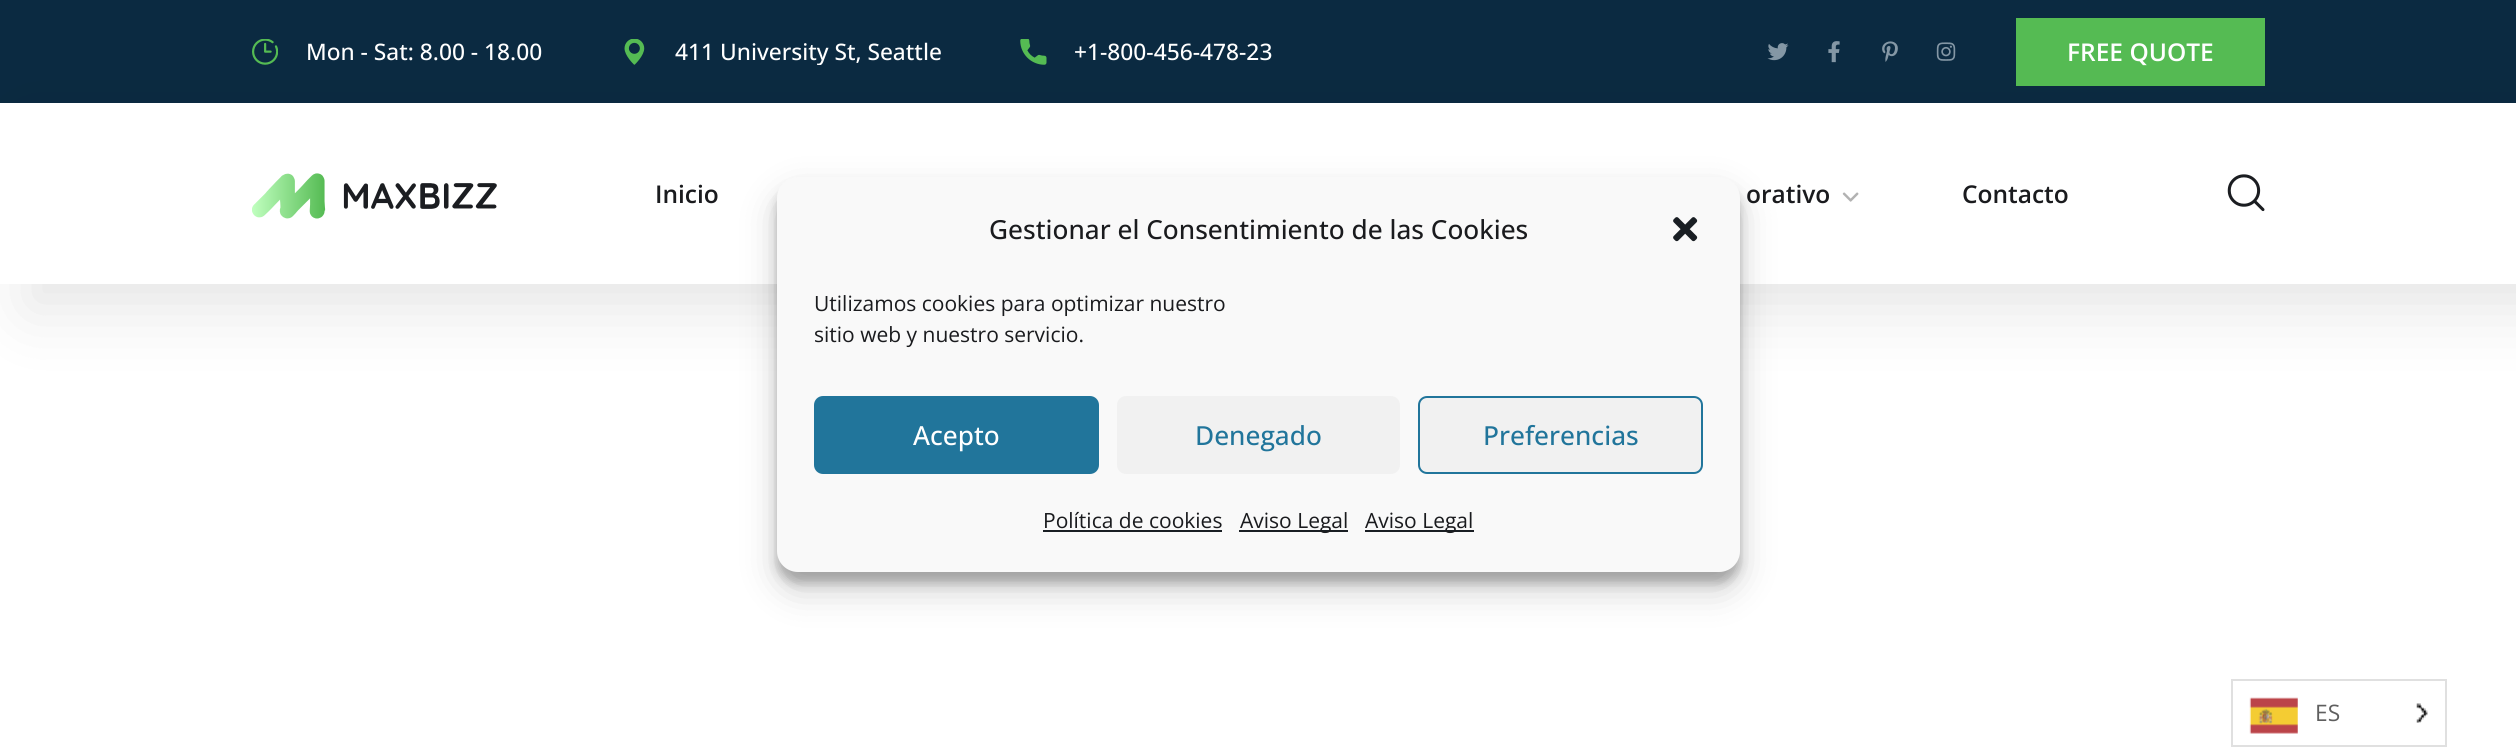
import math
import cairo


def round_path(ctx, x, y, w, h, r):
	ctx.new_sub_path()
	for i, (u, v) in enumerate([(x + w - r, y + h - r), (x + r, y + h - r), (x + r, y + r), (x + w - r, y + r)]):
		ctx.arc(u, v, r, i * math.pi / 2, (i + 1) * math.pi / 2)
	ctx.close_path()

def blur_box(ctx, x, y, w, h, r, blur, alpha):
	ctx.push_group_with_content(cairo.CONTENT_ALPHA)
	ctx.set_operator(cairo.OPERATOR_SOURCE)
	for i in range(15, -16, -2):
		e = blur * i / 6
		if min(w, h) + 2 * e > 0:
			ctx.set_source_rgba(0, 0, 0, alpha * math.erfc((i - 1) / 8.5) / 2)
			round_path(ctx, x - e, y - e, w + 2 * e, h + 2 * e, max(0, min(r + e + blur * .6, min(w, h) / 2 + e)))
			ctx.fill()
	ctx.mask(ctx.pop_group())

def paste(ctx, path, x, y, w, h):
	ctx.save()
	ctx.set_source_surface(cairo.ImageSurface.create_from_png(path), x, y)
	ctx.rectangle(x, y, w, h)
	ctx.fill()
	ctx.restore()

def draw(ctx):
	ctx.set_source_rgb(1, 1, 1)
	ctx.paint()
	ctx.set_source_rgb(0.043, 0.165, 0.255)
	ctx.rectangle(0, 0, 2516, 103)
	ctx.fill()
	paste(ctx, 'media/1.png', 252, 39, 26, 26)
	ctx.select_font_face('Open Sans Medium')
	ctx.set_font_size(22.75)
	ctx.set_source_rgb(1, 1, 1)
	ctx.move_to(306, 60)
	ctx.show_text('Mon - Sat: 8.00 - 18.00')
	paste(ctx, 'media/2.png', 624, 39, 21, 26)
	ctx.save()
	ctx.rectangle(252, 39, 1330, 26)
	ctx.clip()
	ctx.move_to(675, 60)
	ctx.show_text('411 University St, Seattle')
	ctx.restore()
	paste(ctx, 'media/3.png', 1020, 39, 27, 26)
	ctx.move_to(1074, 60)
	ctx.show_text('+1-800-456-478-23')
	paste(ctx, 'media/4.png', 1767, 43, 22, 18)
	paste(ctx, 'media/5.png', 1828, 41, 12, 22)
	paste(ctx, 'media/6.png', 1882, 41, 16, 21)
	paste(ctx, 'media/7.png', 1936, 42, 20, 19)
	ctx.set_source_rgb(0.333, 0.733, 0.325)
	ctx.rectangle(2016, 18, 249, 68)
	ctx.fill()
	ctx.select_font_face('Open Sans SemiBold')
	ctx.set_font_size(24.5)
	ctx.set_source_rgb(1, 1, 1)
	ctx.move_to(2067, 61)
	ctx.show_text('FREE QUOTE')
	ctx.save()
	ctx.set_fill_rule(cairo.FILL_RULE_EVEN_ODD)
	ctx.new_path()
	ctx.move_to(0, 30)
	ctx.line_to(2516, 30)
	ctx.line_to(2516, 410)
	ctx.line_to(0, 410)
	ctx.close_path()
	ctx.move_to(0, 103)
	ctx.line_to(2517, 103)
	ctx.line_to(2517, 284)
	ctx.line_to(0, 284)
	ctx.close_path()
	ctx.clip()
	ctx.set_source_rgb(0, 0, 0)
	blur_box(ctx, 26, 130, 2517, 180, 0, 33, 0.1)
	ctx.restore()
	paste(ctx, 'media/8.png', 252, 173, 245, 46)
	ctx.set_source_rgb(0.102, 0.106, 0.118)
	ctx.move_to(655, 203)
	ctx.show_text('Inicio')
	ctx.move_to(1746, 203)
	ctx.show_text('orativo')
	paste(ctx, 'media/9.png', 1842, 192, 17, 10)
	ctx.move_to(1962, 203)
	ctx.show_text('Contacto')
	paste(ctx, 'media/10.png', 2227, 174, 38, 38)
	ctx.set_source_rgb(0, 0, 0)
	blur_box(ctx, 777, 187, 963, 396, 21, 5, 0.23)
	blur_box(ctx, 777, 194, 963, 396, 21, 17.5, 0.19)
	ctx.set_source_rgb(0.976, 0.976, 0.976)
	round_path(ctx, 778, 178, 961, 393, 20)
	ctx.fill_preserve()
	ctx.stroke()
	ctx.select_font_face('Open Sans Medium')
	ctx.set_font_size(26.25)
	ctx.set_source_rgb(0.102, 0.106, 0.118)
	ctx.move_to(989, 239)
	ctx.show_text('Gestionar el Consentimiento de las Cookies')
	paste(ctx, 'media/11.png', 1673, 217, 25, 25)
	ctx.select_font_face('Open Sans')
	ctx.set_font_size(21)
	ctx.move_to(814, 311)
	ctx.show_text('Utilizamos cookies para optimizar nuestro')
	ctx.move_to(814, 342)
	ctx.show_text('sitio web y nuestro servicio.')
	ctx.set_source_rgb(0.129, 0.459, 0.608)
	round_path(ctx, 815, 397, 283, 76, 8)
	ctx.fill_preserve()
	ctx.stroke()
	ctx.select_font_face('Open Sans Medium')
	ctx.set_font_size(26.25)
	ctx.set_source_rgb(1, 1, 1)
	ctx.move_to(913, 445)
	ctx.show_text('Acepto')
	ctx.set_source_rgb(0.945, 0.945, 0.945)
	round_path(ctx, 1117, 396, 283, 78, 9)
	ctx.fill()
	ctx.set_source_rgb(0.129, 0.459, 0.608)
	ctx.move_to(1195, 445)
	ctx.show_text('Denegado')
	ctx.set_source_rgb(0.945, 0.945, 0.945)
	round_path(ctx, 1419, 397, 283, 76, 8)
	ctx.fill_preserve()
	ctx.set_source_rgb(0.129, 0.459, 0.608)
	ctx.stroke()
	ctx.move_to(1483, 445)
	ctx.show_text('Preferencias')
	ctx.select_font_face('Open Sans')
	ctx.set_font_size(21)
	ctx.set_source_rgb(0.102, 0.106, 0.118)
	ctx.move_to(1043, 528)
	ctx.show_text('Política de cookies')
	ctx.set_source_rgb(0.098, 0.118, 0.137)
	ctx.rectangle(1043, 530, 179, 2)
	ctx.fill()
	ctx.rectangle(1239, 530, 109, 2)
	ctx.fill()
	ctx.set_source_rgb(0.102, 0.106, 0.118)
	ctx.move_to(1240, 528)
	ctx.show_text('Aviso Legal')
	ctx.set_source_rgb(0.098, 0.118, 0.137)
	ctx.rectangle(1365, 530, 109, 2)
	ctx.fill()
	ctx.set_source_rgb(0.102, 0.106, 0.118)
	ctx.move_to(1365, 528)
	ctx.show_text('Aviso Legal')
	ctx.rectangle(2232, 680, 214, 66)
	ctx.set_source_rgb(0.878, 0.878, 0.878)
	ctx.stroke()
	paste(ctx, 'media/12.png', 2249, 697, 49, 37)
	ctx.set_font_size(22.75)
	ctx.set_source_rgb(0.373, 0.373, 0.373)
	ctx.move_to(2315, 721)
	ctx.show_text('ES')
	paste(ctx, 'media/13.png', 2416, 703, 12, 20)


surface = cairo.ImageSurface(cairo.FORMAT_RGB24, 2516, 747)
ctx = cairo.Context(surface)
options = cairo.FontOptions()
options.set_hint_metrics(cairo.HINT_METRICS_OFF)
options.set_hint_style(cairo.HINT_STYLE_NONE)
ctx.set_font_options(options)
ctx.set_miter_limit(4)
draw(ctx)
surface.write_to_png('image.png')
